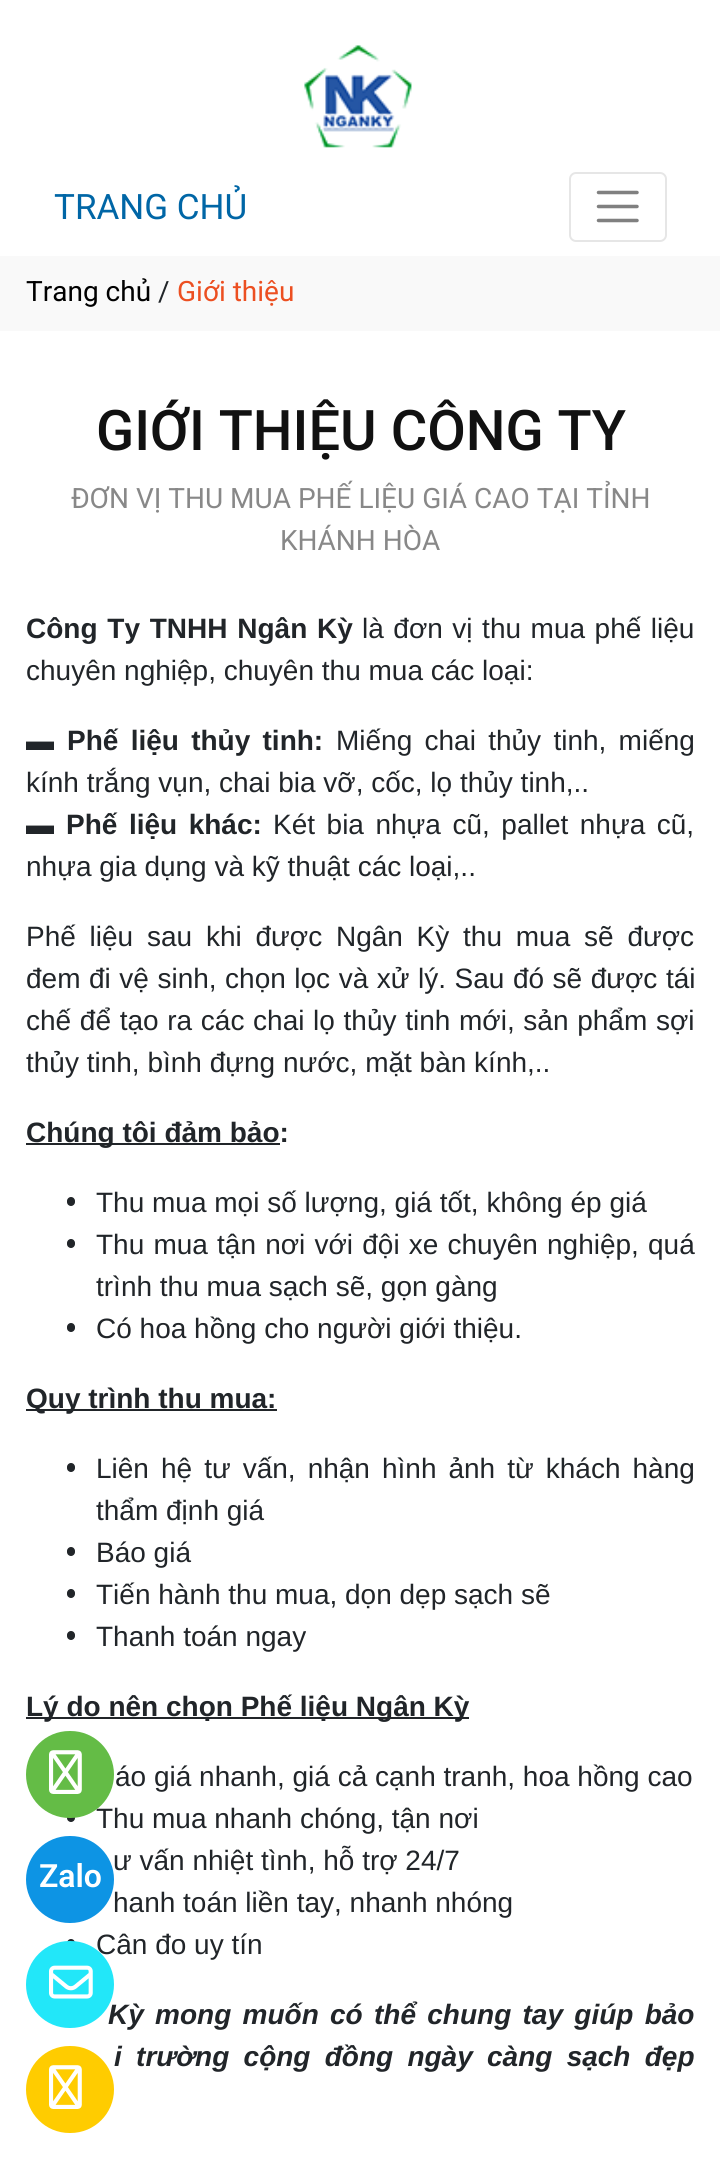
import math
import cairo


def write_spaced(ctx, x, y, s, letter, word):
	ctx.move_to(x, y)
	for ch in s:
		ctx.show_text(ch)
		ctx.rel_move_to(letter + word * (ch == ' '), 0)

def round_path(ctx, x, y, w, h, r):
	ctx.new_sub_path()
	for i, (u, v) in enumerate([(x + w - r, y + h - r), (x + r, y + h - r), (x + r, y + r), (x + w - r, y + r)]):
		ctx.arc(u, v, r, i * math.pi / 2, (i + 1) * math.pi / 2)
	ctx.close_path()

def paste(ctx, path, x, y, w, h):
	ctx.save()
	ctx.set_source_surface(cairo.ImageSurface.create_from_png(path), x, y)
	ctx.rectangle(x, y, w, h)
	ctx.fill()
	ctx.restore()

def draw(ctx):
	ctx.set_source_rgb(1, 1, 1)
	ctx.paint()
	paste(ctx, 'media/1.png', 304, 45, 108, 103)
	ctx.select_font_face('Roboto')
	ctx.set_font_size(35)
	ctx.set_source_rgb(0, 0.4, 0.651)
	ctx.move_to(54, 219)
	ctx.show_text('TRANG CHỦ')
	round_path(ctx, 570, 173, 96, 68, 6)
	ctx.set_source_rgb(0.902, 0.902, 0.902)
	ctx.stroke()
	ctx.new_path()
	ctx.move_to(598.5, 192.5)
	ctx.line_to(637, 192.5)
	ctx.move_to(598.5, 206.5)
	ctx.line_to(637, 206.5)
	ctx.move_to(598.5, 220.5)
	ctx.line_to(637, 220.5)
	ctx.set_source_rgb(0.502, 0.502, 0.502)
	ctx.set_line_width(3.5)
	ctx.set_line_cap(cairo.LINE_CAP_ROUND)
	ctx.stroke()
	ctx.set_source_rgb(0.976, 0.976, 0.976)
	ctx.rectangle(0, 256, 720, 75)
	ctx.fill()
	ctx.set_font_size(28)
	ctx.set_source_rgb(0, 0, 0)
	ctx.move_to(26, 301)
	ctx.show_text('Trang chủ')
	ctx.set_source_rgb(0.129, 0.145, 0.161)
	ctx.move_to(158, 301)
	ctx.show_text('/')
	ctx.set_source_rgb(0.925, 0.31, 0.129)
	ctx.move_to(177, 301)
	ctx.show_text('Giới thiệu')
	ctx.select_font_face('Roboto Medium')
	ctx.set_font_size(56)
	ctx.set_source_rgb(0.067, 0.067, 0.067)
	ctx.move_to(96, 450)
	ctx.show_text('GIỚI THIỆU CÔNG TY')
	ctx.select_font_face('Roboto')
	ctx.set_font_size(28)
	ctx.set_source_rgb(0.533, 0.533, 0.533)
	ctx.move_to(71, 508)
	ctx.show_text('ĐƠN VỊ THU MUA PHẾ LIỆU GIÁ CAO TẠI TỈNH')
	ctx.move_to(280, 550)
	ctx.show_text('KHÁNH HÒA')
	ctx.select_font_face('Liberation Sans', cairo.FONT_SLANT_NORMAL, cairo.FONT_WEIGHT_BOLD)
	ctx.set_source_rgb(0.129, 0.145, 0.161)
	write_spaced(ctx, 26, 638, 'Công Ty TNHH Ngân Kỳ', 0, 2)
	ctx.select_font_face('Liberation Sans')
	write_spaced(ctx, 362, 638, 'là đơn vị thu mua phế liệu', 0, 1.75)
	ctx.move_to(26, 680)
	ctx.show_text('chuyên nghiệp, chuyên thu mua các loại:')
	ctx.move_to(26, 750)
	ctx.show_text('▬')
	ctx.select_font_face('Liberation Sans', cairo.FONT_SLANT_NORMAL, cairo.FONT_WEIGHT_BOLD)
	write_spaced(ctx, 67, 750, 'Phế liệu thủy tinh:', 0, 4.5)
	ctx.select_font_face('Liberation Sans')
	write_spaced(ctx, 336, 750, 'Miếng chai thủy tinh, miếng', 0, 4.5)
	ctx.move_to(26, 792)
	ctx.show_text('kính trắng vụn, chai bia vỡ, cốc, lọ thủy tinh,..')
	ctx.move_to(26, 834)
	ctx.show_text('▬')
	ctx.select_font_face('Liberation Sans', cairo.FONT_SLANT_NORMAL, cairo.FONT_WEIGHT_BOLD)
	write_spaced(ctx, 66, 834, 'Phế liệu khác:', 0, 3.75)
	ctx.select_font_face('Liberation Sans')
	write_spaced(ctx, 273, 834, 'Két bia nhựa cũ, pallet nhựa cũ,', 0, 3.75)
	ctx.move_to(26, 876)
	ctx.show_text('nhựa gia dụng và kỹ thuật các loại,..')
	write_spaced(ctx, 26, 946, 'Phế liệu sau khi được Ngân Kỳ thu mua sẽ được', 0, 6)
	write_spaced(ctx, 26, 988, 'đem đi vệ sinh, chọn lọc và xử lý. Sau đó sẽ được tái', 0, 0.75)
	write_spaced(ctx, 26, 1030, 'chế để tạo ra các chai lọ thủy tinh mới, sản phẩm sợi', 0, 0.9)
	ctx.move_to(26, 1072)
	ctx.show_text('thủy tinh, bình đựng nước, mặt bàn kính,..')
	ctx.rectangle(26, 1143, 254, 2)
	ctx.fill()
	ctx.select_font_face('Liberation Sans', cairo.FONT_SLANT_NORMAL, cairo.FONT_WEIGHT_BOLD)
	ctx.move_to(26, 1142)
	ctx.show_text('Chúng tôi đảm bảo:')
	round_path(ctx, 67, 1197, 8, 9, 4)
	ctx.fill()
	ctx.select_font_face('Liberation Sans')
	ctx.move_to(96, 1212)
	ctx.show_text('Thu mua mọi số lượng, giá tốt, không ép giá')
	round_path(ctx, 67, 1239, 8, 9, 4)
	ctx.fill()
	write_spaced(ctx, 96, 1254, 'Thu mua tận nơi với đội xe chuyên nghiệp, quá', 0, 1.4)
	ctx.move_to(96, 1296)
	ctx.show_text('trình thu mua sạch sẽ, gọn gàng')
	round_path(ctx, 67, 1323, 8, 9, 4)
	ctx.fill()
	ctx.move_to(96, 1338)
	ctx.show_text('Có hoa hồng cho người giới thiệu.')
	ctx.rectangle(26, 1409, 251, 2)
	ctx.fill()
	ctx.select_font_face('Liberation Sans', cairo.FONT_SLANT_NORMAL, cairo.FONT_WEIGHT_BOLD)
	ctx.move_to(26, 1408)
	ctx.show_text('Quy trình thu mua:')
	round_path(ctx, 67, 1463, 8, 9, 4)
	ctx.fill()
	ctx.select_font_face('Liberation Sans')
	write_spaced(ctx, 96, 1478, 'Liên hệ tư vấn, nhận hình ảnh từ khách hàng', 0, 4.25)
	ctx.move_to(96, 1520)
	ctx.show_text('thẩm định giá')
	round_path(ctx, 67, 1547, 8, 9, 4)
	ctx.fill()
	ctx.move_to(96, 1562)
	ctx.show_text('Báo giá')
	round_path(ctx, 67, 1589, 8, 9, 4)
	ctx.fill()
	ctx.move_to(96, 1604)
	ctx.show_text('Tiến hành thu mua, dọn dẹp sạch sẽ')
	round_path(ctx, 67, 1631, 8, 9, 4)
	ctx.fill()
	ctx.move_to(96, 1646)
	ctx.show_text('Thanh toán ngay')
	ctx.rectangle(26, 1717, 443, 2)
	ctx.fill()
	ctx.select_font_face('Liberation Sans', cairo.FONT_SLANT_NORMAL, cairo.FONT_WEIGHT_BOLD)
	ctx.move_to(26, 1716)
	ctx.show_text('Lý do nên chọn Phế liệu Ngân Kỳ')
	ctx.select_font_face('Liberation Sans')
	ctx.move_to(115, 1786)
	ctx.show_text('áo giá nhanh, giá cả cạnh tranh, hoa hồng cao')
	round_path(ctx, 67, 1813, 8, 9, 4)
	ctx.fill()
	for x, y, s in [
		(96, 1828, 'Thu mua nhanh chóng, tận nơi'),
		(113, 1870, 'ư vấn nhiệt tình, hỗ trợ 24/7'),
		(113, 1912, 'hanh toán liền tay, nhanh nhóng'),
	]:
		ctx.move_to(x, y)
		ctx.show_text(s)
	round_path(ctx, 67, 1939, 8, 9, 4)
	ctx.fill()
	ctx.move_to(96, 1954)
	ctx.show_text('Cân đo uy tín')
	ctx.select_font_face('Liberation Sans', cairo.FONT_SLANT_ITALIC, cairo.FONT_WEIGHT_BOLD)
	write_spaced(ctx, 108, 2024, 'Kỳ mong muốn có thể chung tay giúp bảo', 0, 3.5)
	write_spaced(ctx, 114, 2066, 'i trường cộng đồng ngày càng sạch đẹp', 0, 6.5)
	ctx.set_source_rgb(0.392, 0.737, 0.275)
	round_path(ctx, 26, 1731, 88, 87, 43.5)
	ctx.fill()
	paste(ctx, 'media/2.png', 49, 1750, 33, 44)
	ctx.set_source_rgb(0.051, 0.58, 0.894)
	round_path(ctx, 26, 1836, 88, 87, 43.5)
	ctx.fill()
	ctx.select_font_face('Roboto SemiBold')
	ctx.set_font_size(32)
	ctx.set_source_rgb(1, 1, 1)
	ctx.move_to(39, 1887)
	ctx.show_text('Zalo')
	ctx.set_source_rgb(0.133, 0.906, 0.976)
	round_path(ctx, 26, 1941, 88, 87, 43.5)
	ctx.fill()
	paste(ctx, 'media/3.png', 49, 1965, 44, 34)
	ctx.set_source_rgb(1, 0.8, 0)
	round_path(ctx, 26, 2046, 88, 87, 43.5)
	ctx.fill()
	paste(ctx, 'media/4.png', 49, 2065, 33, 44)


surface = cairo.ImageSurface(cairo.FORMAT_RGB24, 720, 2158)
ctx = cairo.Context(surface)
options = cairo.FontOptions()
options.set_hint_metrics(cairo.HINT_METRICS_OFF)
options.set_hint_style(cairo.HINT_STYLE_NONE)
ctx.set_font_options(options)
ctx.set_miter_limit(4)
draw(ctx)
surface.write_to_png('image.png')
